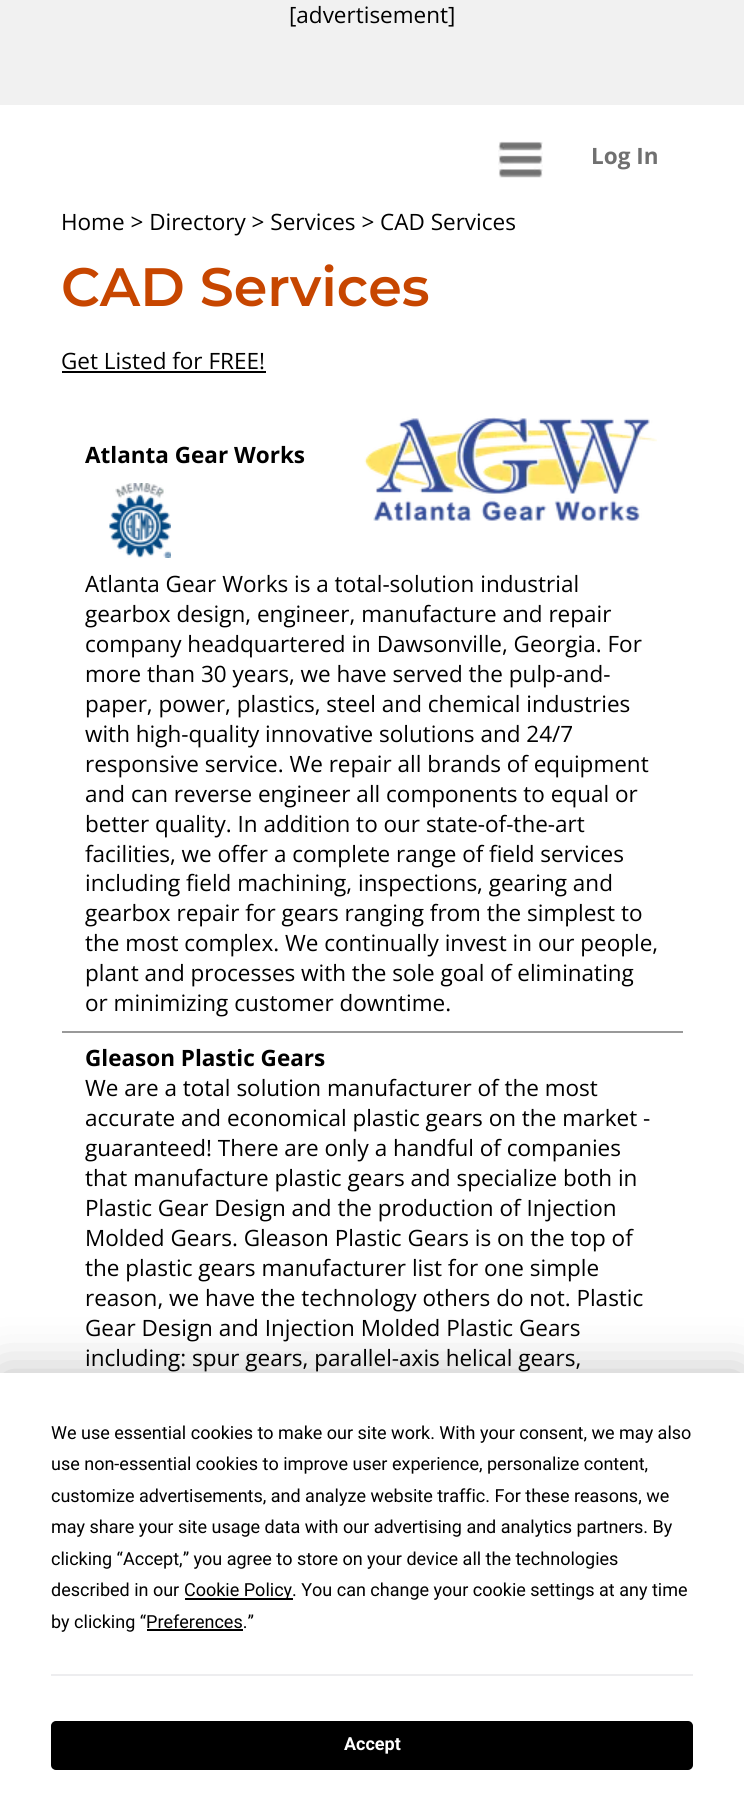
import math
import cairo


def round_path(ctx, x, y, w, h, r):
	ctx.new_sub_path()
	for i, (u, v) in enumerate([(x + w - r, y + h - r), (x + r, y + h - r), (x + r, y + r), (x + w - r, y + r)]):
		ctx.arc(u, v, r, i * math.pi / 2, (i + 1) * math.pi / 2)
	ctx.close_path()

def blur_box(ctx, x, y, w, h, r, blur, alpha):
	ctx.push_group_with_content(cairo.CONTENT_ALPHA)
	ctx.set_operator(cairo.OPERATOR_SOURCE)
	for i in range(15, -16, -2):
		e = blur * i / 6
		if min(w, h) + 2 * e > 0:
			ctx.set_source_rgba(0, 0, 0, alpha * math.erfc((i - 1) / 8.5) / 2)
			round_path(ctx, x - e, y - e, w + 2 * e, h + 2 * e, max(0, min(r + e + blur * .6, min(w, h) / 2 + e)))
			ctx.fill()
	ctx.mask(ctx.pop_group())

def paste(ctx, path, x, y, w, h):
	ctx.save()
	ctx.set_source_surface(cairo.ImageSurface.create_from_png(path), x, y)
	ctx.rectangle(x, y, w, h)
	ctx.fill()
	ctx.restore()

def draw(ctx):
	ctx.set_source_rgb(1, 1, 1)
	ctx.paint()
	ctx.set_source_rgb(0.945, 0.945, 0.945)
	ctx.rectangle(0, 0, 744, 105)
	ctx.fill()
	ctx.select_font_face('Open Sans')
	ctx.set_font_size(22.5)
	ctx.set_source_rgb(0, 0, 0)
	ctx.move_to(289, 23)
	ctx.show_text('[advertisement]')
	paste(ctx, 'media/1.png', 498, 141, 45, 37)
	ctx.select_font_face('Open Sans', cairo.FONT_SLANT_NORMAL, cairo.FONT_WEIGHT_BOLD)
	ctx.set_source_rgb(0.439, 0.439, 0.439)
	ctx.move_to(591, 164)
	ctx.show_text('Log In')
	ctx.select_font_face('Open Sans')
	ctx.set_source_rgb(0, 0, 0)
	ctx.move_to(61, 230)
	ctx.show_text('Home > Directory > Services > CAD Services')
	ctx.select_font_face('Montserrat SemiBold')
	ctx.set_font_size(54)
	ctx.set_source_rgb(0.78, 0.275, 0)
	ctx.move_to(61, 306)
	ctx.show_text('CAD Services')
	ctx.select_font_face('Open Sans')
	ctx.set_font_size(22.5)
	ctx.set_source_rgb(0, 0, 0)
	ctx.move_to(61, 369)
	ctx.show_text('Get Listed for FREE!')
	ctx.rectangle(62, 371, 204, 2)
	ctx.fill()
	ctx.set_source_rgb(0.6, 0.6, 0.6)
	ctx.rectangle(62, 1031, 621, 2)
	ctx.fill()
	ctx.select_font_face('Open Sans', cairo.FONT_SLANT_NORMAL, cairo.FONT_WEIGHT_BOLD)
	ctx.set_source_rgb(0, 0, 0)
	ctx.move_to(85, 463)
	ctx.show_text('Atlanta Gear Works')
	paste(ctx, 'media/2.png', 364, 417, 293, 104)
	paste(ctx, 'media/3.png', 109, 483, 62, 75)
	ctx.select_font_face('Open Sans')
	for x, y, s in [
		(85, 592, 'Atlanta Gear Works is a total-solution industrial'),
		(85, 622, 'gearbox design, engineer, manufacture and repair'),
		(85, 652, 'company headquartered in Dawsonville, Georgia. For'),
		(85, 682, 'more than 30 years, we have served the pulp-and-'),
		(85, 712, 'paper, power, plastics, steel and chemical industries'),
		(85, 742, 'with high-quality innovative solutions and 24/7'),
		(85, 772, 'responsive service. We repair all brands of equipment'),
		(85, 802, 'and can reverse engineer all components to equal or'),
		(85, 832, 'better quality. In addition to our state-of-the-art'),
		(85, 862, 'facilities, we offer a complete range of field services'),
		(85, 891, 'including field machining, inspections, gearing and'),
		(85, 921, 'gearbox repair for gears ranging from the simplest to'),
		(85, 951, 'the most complex. We continually invest in our people,'),
		(85, 981, 'plant and processes with the sole goal of eliminating'),
		(85, 1011, 'or minimizing customer downtime.'),
	]:
		ctx.move_to(x, y)
		ctx.show_text(s)
	ctx.select_font_face('Open Sans', cairo.FONT_SLANT_NORMAL, cairo.FONT_WEIGHT_BOLD)
	ctx.move_to(85, 1066)
	ctx.show_text('Gleason Plastic Gears')
	ctx.select_font_face('Open Sans')
	for x, y, s in [
		(85, 1096, 'We are a total solution manufacturer of the most'),
		(85, 1126, 'accurate and economical plastic gears on the market -'),
		(85, 1156, 'guaranteed! There are only a handful of companies'),
		(85, 1186, 'that manufacture plastic gears and specialize both in'),
		(85, 1216, 'Plastic Gear Design and the production of Injection'),
		(85, 1246, 'Molded Gears. Gleason Plastic Gears is on the top of'),
		(85, 1276, 'the plastic gears manufacturer list for one simple'),
		(85, 1306, 'reason, we have the technology others do not. Plastic'),
		(85, 1336, 'Gear Design and Injection Molded Plastic Gears'),
		(85, 1366, 'including: spur gears, parallel-axis helical gears,'),
	]:
		ctx.move_to(x, y)
		ctx.show_text(s)
	ctx.set_source_rgb(0, 0, 0)
	blur_box(ctx, 0, 1373, 744, 442, 0, 26, 0.25)
	ctx.set_source_rgb(1, 1, 1)
	ctx.rectangle(0, 1373, 744, 442)
	ctx.fill()
	ctx.select_font_face('Roboto')
	ctx.set_font_size(18)
	ctx.set_source_rgb(0, 0, 0)
	for x, y, s in [
		(51, 1439, 'We use essential cookies to make our site work. With your consent, we may also'),
		(51, 1470, 'use non-essential cookies to improve user experience, personalize content,'),
		(51, 1502, 'customize advertisements, and analyze website traffic. For these reasons, we'),
		(51, 1533, 'may share your site usage data with our advertising and analytics partners. By'),
		(51, 1565, 'clicking “Accept,” you agree to store on your device all the technologies'),
		(51, 1596, 'described in our'),
	]:
		ctx.move_to(x, y)
		ctx.show_text(s)
	ctx.rectangle(185, 1598, 108, 2)
	ctx.fill()
	ctx.move_to(184, 1596)
	ctx.show_text('Cookie Policy. You can change your cookie settings at any time')
	ctx.move_to(51, 1628)
	ctx.show_text('by clicking “Preferences.”')
	ctx.rectangle(147, 1629, 96, 2)
	ctx.fill()
	ctx.set_source_rgb(0.929, 0.929, 0.937)
	ctx.rectangle(51, 1674, 642, 2)
	ctx.fill()
	ctx.set_source_rgb(0, 0, 0)
	round_path(ctx, 52, 1722, 640, 47, 4)
	ctx.fill_preserve()
	ctx.stroke()
	ctx.select_font_face('Roboto', cairo.FONT_SLANT_NORMAL, cairo.FONT_WEIGHT_BOLD)
	ctx.set_source_rgb(1, 1, 1)
	ctx.move_to(344, 1750)
	ctx.show_text('Accept')


surface = cairo.ImageSurface(cairo.FORMAT_RGB24, 744, 1815)
ctx = cairo.Context(surface)
options = cairo.FontOptions()
options.set_hint_metrics(cairo.HINT_METRICS_OFF)
options.set_hint_style(cairo.HINT_STYLE_NONE)
ctx.set_font_options(options)
ctx.set_miter_limit(4)
draw(ctx)
surface.write_to_png('image.png')
